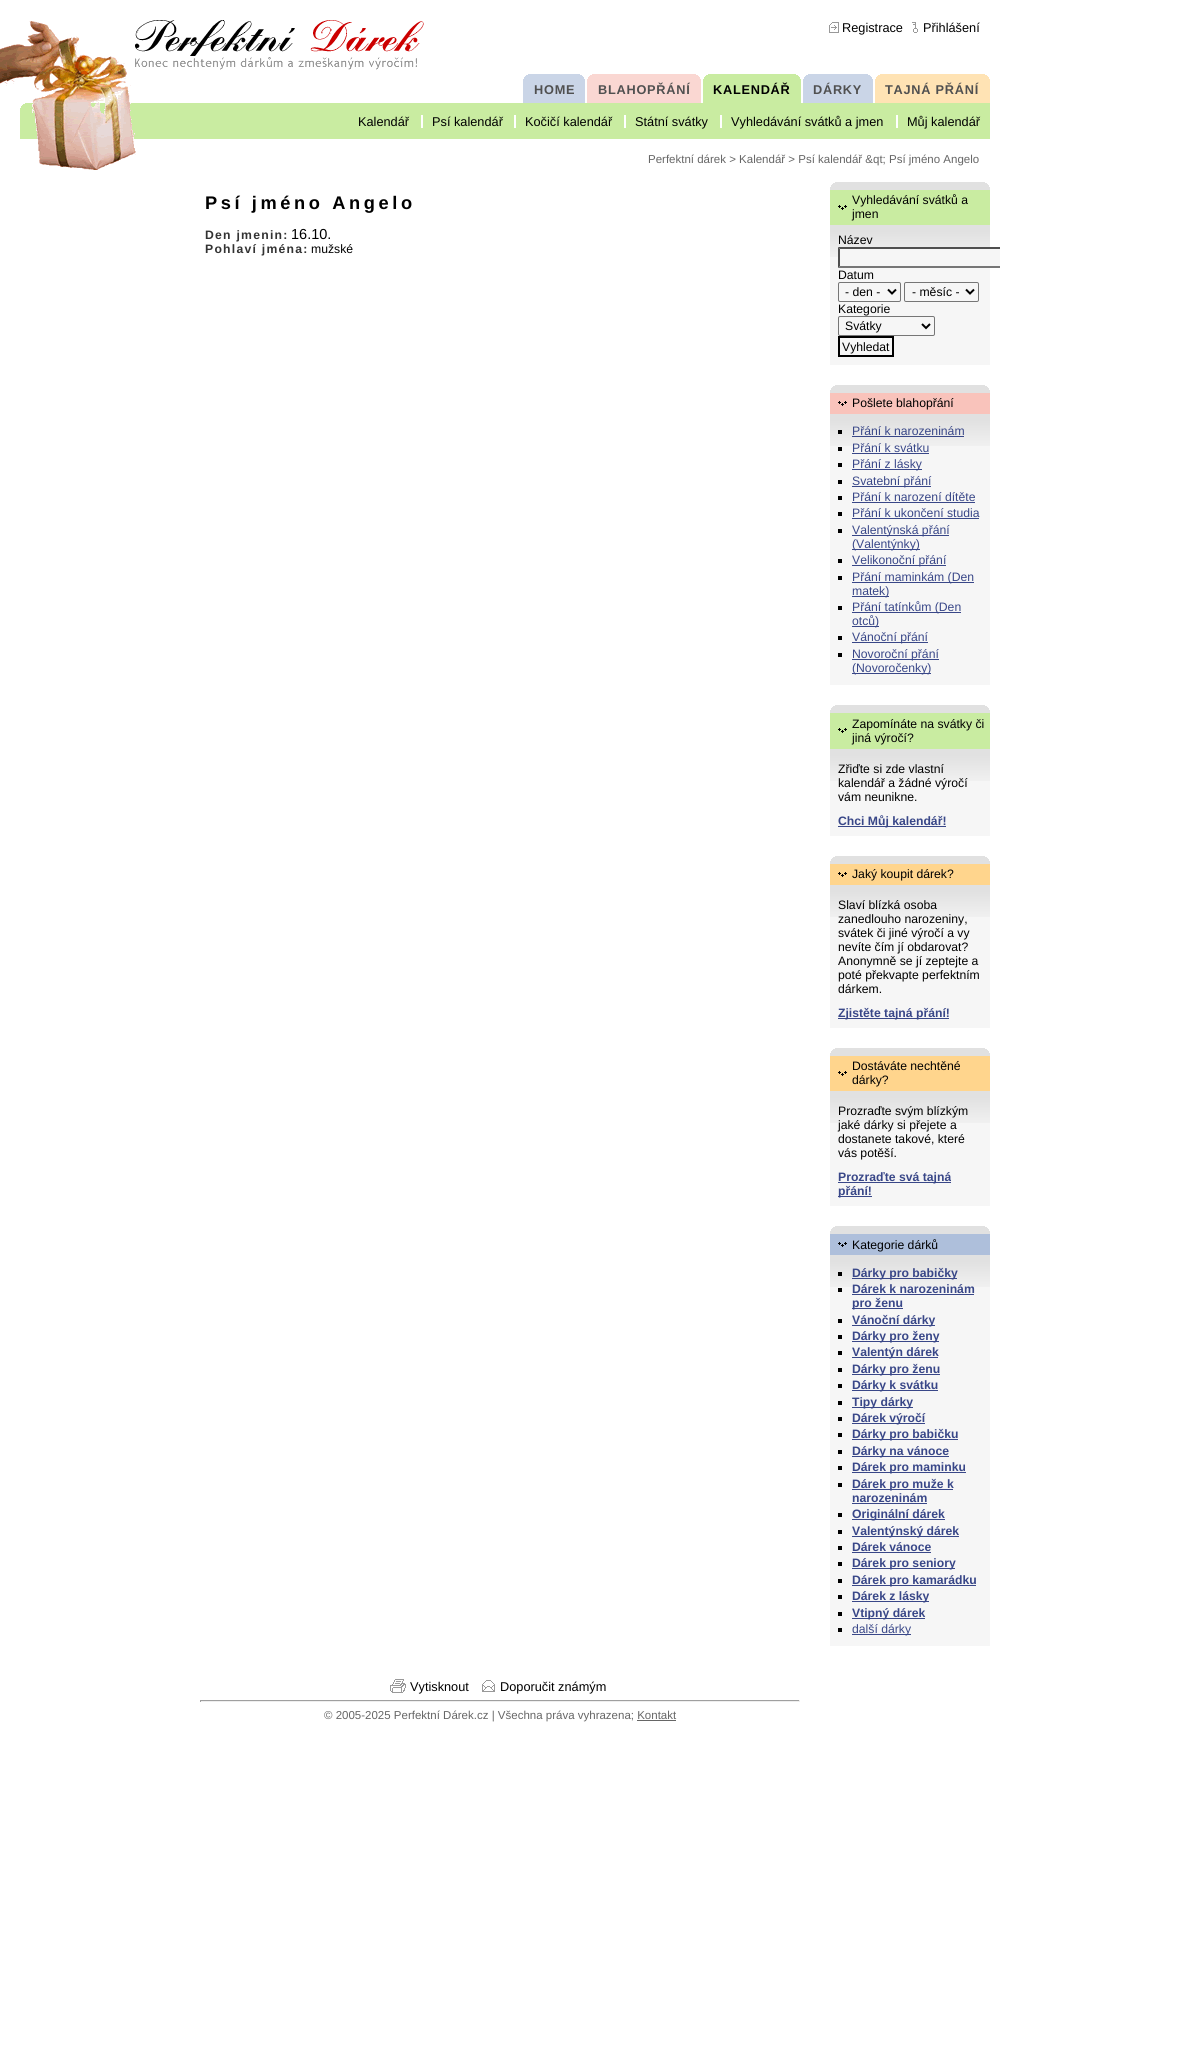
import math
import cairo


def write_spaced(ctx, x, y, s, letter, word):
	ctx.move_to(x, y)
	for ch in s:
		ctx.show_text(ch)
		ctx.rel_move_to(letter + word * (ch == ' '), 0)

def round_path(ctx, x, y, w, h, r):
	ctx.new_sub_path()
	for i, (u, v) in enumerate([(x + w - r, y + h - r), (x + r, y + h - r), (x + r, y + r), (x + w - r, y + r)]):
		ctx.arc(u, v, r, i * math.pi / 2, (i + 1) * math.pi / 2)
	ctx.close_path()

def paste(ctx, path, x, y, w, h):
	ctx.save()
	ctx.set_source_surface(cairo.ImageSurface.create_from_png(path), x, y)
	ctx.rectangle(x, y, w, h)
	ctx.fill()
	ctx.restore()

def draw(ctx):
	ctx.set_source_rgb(1, 1, 1)
	ctx.paint()
	paste(ctx, 'media/2.png', 135, 20, 289, 50)
	ctx.set_source_rgb(0.788, 0.922, 0.631)
	ctx.rectangle(20, 103, 970, 36)
	ctx.fill()
	paste(ctx, 'media/9.png', 20, 103, 5, 5)
	paste(ctx, 'media/1.png', 0, 21, 136, 149)
	paste(ctx, 'media/3.png', 829, 22, 10, 11)
	ctx.select_font_face('Liberation Sans')
	ctx.set_font_size(12.75)
	ctx.set_source_rgb(0, 0, 0)
	ctx.move_to(842, 32)
	ctx.show_text('Registrace')
	paste(ctx, 'media/4.png', 912, 22, 6, 11)
	ctx.move_to(923, 32)
	ctx.show_text('Přihlášení')
	ctx.set_source_rgb(0.792, 0.835, 0.906)
	ctx.rectangle(523, 74, 62, 29)
	ctx.fill()
	paste(ctx, 'media/5.png', 523, 74, 5, 5)
	paste(ctx, 'media/6.png', 580, 74, 5, 5)
	ctx.select_font_face('Liberation Sans', cairo.FONT_SLANT_NORMAL, cairo.FONT_WEIGHT_BOLD)
	ctx.set_source_rgb(0.314, 0.314, 0.314)
	write_spaced(ctx, 534, 94, 'HOME', 0.75, 0)
	ctx.set_source_rgb(0.98, 0.843, 0.824)
	ctx.rectangle(587, 74, 114, 29)
	ctx.fill()
	paste(ctx, 'media/7.png', 587, 74, 5, 5)
	paste(ctx, 'media/8.png', 696, 74, 5, 5)
	ctx.set_source_rgb(0.314, 0.314, 0.314)
	write_spaced(ctx, 598, 94, 'BLAHOPŘÁNÍ', 0.75, 0)
	ctx.set_source_rgb(0.788, 0.922, 0.631)
	ctx.rectangle(703, 74, 98, 29)
	ctx.fill()
	paste(ctx, 'media/9.png', 703, 74, 5, 5)
	paste(ctx, 'media/10.png', 796, 74, 5, 5)
	ctx.set_source_rgb(0, 0, 0)
	write_spaced(ctx, 713, 94, 'KALENDÁŘ', 0.75, 0)
	ctx.set_source_rgb(0.792, 0.835, 0.906)
	ctx.rectangle(803, 74, 70, 29)
	ctx.fill()
	paste(ctx, 'media/5.png', 803, 74, 5, 5)
	paste(ctx, 'media/6.png', 868, 74, 5, 5)
	ctx.set_source_rgb(0.314, 0.314, 0.314)
	write_spaced(ctx, 813, 94, 'DÁRKY', 0.75, 0)
	ctx.set_source_rgb(1, 0.89, 0.706)
	ctx.rectangle(875, 74, 115, 29)
	ctx.fill()
	paste(ctx, 'media/11.png', 875, 74, 5, 5)
	paste(ctx, 'media/12.png', 985, 74, 5, 5)
	ctx.set_source_rgb(0.314, 0.314, 0.314)
	write_spaced(ctx, 885, 94, 'TAJNÁ PŘÁNÍ', 0.75, 0)
	ctx.select_font_face('Liberation Sans')
	ctx.set_source_rgb(0, 0, 0)
	ctx.move_to(358, 126)
	ctx.show_text('Kalendář')
	ctx.move_to(432, 126)
	ctx.show_text('Psí kalendář')
	ctx.set_source_rgb(1, 1, 1)
	ctx.rectangle(421, 115, 2, 13)
	ctx.fill()
	ctx.set_source_rgb(0, 0, 0)
	ctx.move_to(525, 126)
	ctx.show_text('Kočičí kalendář')
	ctx.set_source_rgb(1, 1, 1)
	ctx.rectangle(514, 115, 2, 13)
	ctx.fill()
	ctx.set_source_rgb(0, 0, 0)
	ctx.move_to(635, 126)
	ctx.show_text('Státní svátky')
	ctx.set_source_rgb(1, 1, 1)
	ctx.rectangle(624, 115, 2, 13)
	ctx.fill()
	ctx.set_source_rgb(0, 0, 0)
	ctx.move_to(731, 126)
	ctx.show_text('Vyhledávání svátků a jmen')
	ctx.set_source_rgb(1, 1, 1)
	ctx.rectangle(720, 115, 2, 13)
	ctx.fill()
	ctx.set_source_rgb(0, 0, 0)
	ctx.move_to(907, 126)
	ctx.show_text('Můj kalendář')
	ctx.set_source_rgb(1, 1, 1)
	ctx.rectangle(896, 115, 2, 13)
	ctx.fill()
	ctx.set_font_size(11.5)
	ctx.set_source_rgb(0.4, 0.4, 0.4)
	ctx.move_to(648, 163)
	ctx.show_text('Perfektní dárek > Kalendář > Psí kalendář &qt; Psí jméno Angelo')
	ctx.select_font_face('Liberation Sans', cairo.FONT_SLANT_NORMAL, cairo.FONT_WEIGHT_BOLD)
	ctx.set_font_size(18.25)
	ctx.set_source_rgb(0, 0, 0)
	write_spaced(ctx, 205, 209, 'Psí jméno Angelo', 3.6, 0)
	ctx.set_font_size(12.2)
	ctx.set_source_rgb(0.2, 0.2, 0.2)
	write_spaced(ctx, 205, 239, 'Den jmenin:', 1.25, 0)
	ctx.select_font_face('Liberation Sans')
	ctx.set_font_size(14.5)
	ctx.set_source_rgb(0, 0, 0)
	ctx.move_to(291, 239)
	ctx.show_text('16.10.')
	ctx.select_font_face('Liberation Sans', cairo.FONT_SLANT_NORMAL, cairo.FONT_WEIGHT_BOLD)
	ctx.set_font_size(12.2)
	ctx.set_source_rgb(0.2, 0.2, 0.2)
	write_spaced(ctx, 205, 253, 'Pohlaví jména:', 1.25, 0)
	ctx.select_font_face('Liberation Sans')
	ctx.set_source_rgb(0, 0, 0)
	ctx.move_to(311, 253)
	ctx.show_text('mužské')
	ctx.set_source_rgb(0.882, 0.882, 0.882)
	ctx.rectangle(830, 182, 160, 8)
	ctx.fill()
	paste(ctx, 'media/13.png', 985, 182, 5, 5)
	paste(ctx, 'media/14.png', 830, 182, 5, 5)
	ctx.set_source_rgb(0.788, 0.922, 0.631)
	ctx.rectangle(830, 190, 160, 35)
	ctx.fill()
	paste(ctx, 'media/15.png', 838, 205, 9, 5)
	ctx.set_source_rgb(0, 0, 0)
	ctx.move_to(852, 204)
	ctx.show_text('Vyhledávání svátků a')
	ctx.move_to(852, 218)
	ctx.show_text('jmen')
	ctx.set_source_rgb(0.961, 0.961, 0.961)
	ctx.rectangle(830, 257, 160, 108)
	ctx.fill()
	paste(ctx, 'media/16.png', 830, 225, 160, 32)
	ctx.set_source_rgb(0, 0, 0)
	ctx.move_to(838, 244)
	ctx.show_text('Název')
	ctx.set_source_rgb(0.961, 0.961, 0.961)
	ctx.rectangle(838, 247, 162, 21)
	ctx.fill()
	ctx.save()
	ctx.rectangle(0, 170, 1000, 1509)
	ctx.clip()
	ctx.set_source_rgb(0.31, 0.31, 0.31)
	ctx.new_path()
	ctx.move_to(838, 247)
	ctx.line_to(1003, 247)
	ctx.line_to(1001, 249)
	ctx.line_to(840, 249)
	ctx.close_path()
	ctx.fill()
	ctx.set_source_rgb(0.463, 0.463, 0.463)
	ctx.new_path()
	ctx.move_to(1003, 268)
	ctx.line_to(838, 268)
	ctx.line_to(840, 266)
	ctx.line_to(1001, 266)
	ctx.close_path()
	ctx.fill()
	ctx.restore()
	ctx.set_source_rgb(0.31, 0.31, 0.31)
	ctx.new_path()
	ctx.move_to(838, 268)
	ctx.line_to(838, 247)
	ctx.line_to(840, 249)
	ctx.line_to(840, 266)
	ctx.close_path()
	ctx.fill()
	ctx.set_source_rgb(0, 0, 0)
	ctx.move_to(838, 279)
	ctx.show_text('Datum')
	round_path(ctx, 838.5, 282.5, 62, 19, 1.5)
	ctx.set_source_rgb(0.463, 0.463, 0.463)
	ctx.set_line_width(1)
	ctx.stroke()
	ctx.new_path()
	ctx.move_to(888, 289.5)
	ctx.line_to(892, 293.5)
	ctx.line_to(896, 289.5)
	ctx.set_source_rgb(0, 0, 0)
	ctx.set_line_width(2)
	ctx.stroke()
	ctx.move_to(845, 296)
	ctx.show_text('- den -')
	round_path(ctx, 904.5, 282.5, 74, 19, 1.5)
	ctx.set_source_rgb(0.463, 0.463, 0.463)
	ctx.set_line_width(1)
	ctx.stroke()
	ctx.new_path()
	ctx.move_to(966, 289.5)
	ctx.line_to(970, 293.5)
	ctx.line_to(974, 289.5)
	ctx.set_source_rgb(0, 0, 0)
	ctx.set_line_width(2)
	ctx.stroke()
	ctx.move_to(912, 296)
	ctx.show_text('- měsíc -')
	ctx.move_to(838, 313)
	ctx.show_text('Kategorie')
	round_path(ctx, 838.5, 316.5, 96, 19, 1.5)
	ctx.set_source_rgb(0.463, 0.463, 0.463)
	ctx.set_line_width(1)
	ctx.stroke()
	ctx.new_path()
	ctx.move_to(922, 324)
	ctx.line_to(926, 328)
	ctx.line_to(930, 324)
	ctx.set_source_rgb(0, 0, 0)
	ctx.set_line_width(2)
	ctx.stroke()
	ctx.move_to(845, 330)
	ctx.show_text('Svátky')
	ctx.rectangle(839, 337, 54, 19)
	ctx.stroke()
	ctx.move_to(842, 351)
	ctx.show_text('Vyhledat')
	ctx.set_source_rgb(0.882, 0.882, 0.882)
	ctx.rectangle(830, 385, 160, 8)
	ctx.fill()
	paste(ctx, 'media/13.png', 985, 385, 5, 5)
	paste(ctx, 'media/14.png', 830, 385, 5, 5)
	ctx.set_source_rgb(0.973, 0.765, 0.733)
	ctx.rectangle(830, 393, 160, 21)
	ctx.fill()
	paste(ctx, 'media/17.png', 838, 401, 9, 5)
	ctx.set_source_rgb(0, 0, 0)
	ctx.move_to(852, 407)
	ctx.show_text('Pošlete blahopřání')
	ctx.set_source_rgb(0.961, 0.961, 0.961)
	ctx.rectangle(830, 446, 160, 239)
	ctx.fill()
	paste(ctx, 'media/16.png', 830, 414, 160, 32)
	ctx.set_source_rgb(0, 0, 0)
	ctx.rectangle(838, 430, 4, 4)
	ctx.fill()
	ctx.set_source_rgb(0.224, 0.278, 0.533)
	ctx.move_to(852, 435)
	ctx.show_text('Přání k narozeninám')
	ctx.rectangle(852, 436, 112, 1)
	ctx.fill()
	ctx.set_source_rgb(0, 0, 0)
	ctx.rectangle(838, 447, 4, 4)
	ctx.fill()
	ctx.set_source_rgb(0.224, 0.278, 0.533)
	ctx.move_to(852, 452)
	ctx.show_text('Přání k svátku')
	ctx.rectangle(852, 453, 77, 1)
	ctx.fill()
	ctx.set_source_rgb(0, 0, 0)
	ctx.rectangle(838, 463, 4, 4)
	ctx.fill()
	ctx.set_source_rgb(0.224, 0.278, 0.533)
	ctx.rectangle(852, 469, 70, 1)
	ctx.fill()
	ctx.move_to(852, 468)
	ctx.show_text('Přání z lásky')
	ctx.set_source_rgb(0, 0, 0)
	ctx.rectangle(838, 480, 4, 4)
	ctx.fill()
	ctx.set_source_rgb(0.224, 0.278, 0.533)
	ctx.rectangle(852, 486, 79, 1)
	ctx.fill()
	ctx.move_to(852, 485)
	ctx.show_text('Svatební přání')
	ctx.set_source_rgb(0, 0, 0)
	ctx.rectangle(838, 496, 4, 4)
	ctx.fill()
	ctx.set_source_rgb(0.224, 0.278, 0.533)
	ctx.move_to(852, 501)
	ctx.show_text('Přání k narození dítěte')
	ctx.rectangle(852, 502, 123, 1)
	ctx.fill()
	ctx.set_source_rgb(0, 0, 0)
	ctx.rectangle(838, 512, 4, 4)
	ctx.fill()
	ctx.set_source_rgb(0.224, 0.278, 0.533)
	ctx.move_to(852, 517)
	ctx.show_text('Přání k ukončení studia')
	ctx.rectangle(852, 518, 127, 1)
	ctx.fill()
	ctx.set_source_rgb(0, 0, 0)
	ctx.rectangle(838, 529, 4, 4)
	ctx.fill()
	ctx.set_source_rgb(0.224, 0.278, 0.533)
	ctx.rectangle(852, 535, 97, 1)
	ctx.fill()
	ctx.move_to(852, 534)
	ctx.show_text('Valentýnská přání')
	ctx.rectangle(852, 549, 68, 1)
	ctx.fill()
	ctx.move_to(852, 548)
	ctx.show_text('(Valentýnky)')
	ctx.set_source_rgb(0, 0, 0)
	ctx.rectangle(838, 559, 4, 4)
	ctx.fill()
	ctx.set_source_rgb(0.224, 0.278, 0.533)
	ctx.rectangle(852, 565, 94, 1)
	ctx.fill()
	ctx.move_to(852, 564)
	ctx.show_text('Velikonoční přání')
	ctx.set_source_rgb(0, 0, 0)
	ctx.rectangle(838, 576, 4, 4)
	ctx.fill()
	ctx.set_source_rgb(0.224, 0.278, 0.533)
	ctx.rectangle(852, 582, 122, 1)
	ctx.fill()
	ctx.move_to(852, 581)
	ctx.show_text('Přání maminkám (Den')
	ctx.rectangle(852, 596, 37, 1)
	ctx.fill()
	ctx.move_to(852, 595)
	ctx.show_text('matek)')
	ctx.set_source_rgb(0, 0, 0)
	ctx.rectangle(838, 606, 4, 4)
	ctx.fill()
	ctx.set_source_rgb(0.224, 0.278, 0.533)
	ctx.rectangle(852, 612, 109, 1)
	ctx.fill()
	ctx.move_to(852, 611)
	ctx.show_text('Přání tatínkům (Den')
	ctx.rectangle(852, 626, 27, 1)
	ctx.fill()
	ctx.move_to(852, 625)
	ctx.show_text('otců)')
	ctx.set_source_rgb(0, 0, 0)
	ctx.rectangle(838, 636, 4, 4)
	ctx.fill()
	ctx.set_source_rgb(0.224, 0.278, 0.533)
	ctx.rectangle(852, 642, 76, 1)
	ctx.fill()
	ctx.move_to(852, 641)
	ctx.show_text('Vánoční přání')
	ctx.set_source_rgb(0, 0, 0)
	ctx.rectangle(838, 653, 4, 4)
	ctx.fill()
	ctx.set_source_rgb(0.224, 0.278, 0.533)
	ctx.rectangle(852, 659, 87, 1)
	ctx.fill()
	ctx.move_to(852, 658)
	ctx.show_text('Novoroční přání')
	ctx.rectangle(852, 673, 79, 1)
	ctx.fill()
	ctx.move_to(852, 672)
	ctx.show_text('(Novoročenky)')
	ctx.set_source_rgb(0.882, 0.882, 0.882)
	ctx.rectangle(830, 705, 160, 8)
	ctx.fill()
	paste(ctx, 'media/13.png', 985, 705, 5, 5)
	paste(ctx, 'media/14.png', 830, 705, 5, 5)
	ctx.set_source_rgb(0.788, 0.922, 0.631)
	ctx.rectangle(830, 713, 160, 36)
	ctx.fill()
	paste(ctx, 'media/15.png', 838, 728, 9, 5)
	ctx.set_source_rgb(0, 0, 0)
	ctx.move_to(852, 728)
	ctx.show_text('Zapomínáte na svátky či')
	ctx.move_to(852, 742)
	ctx.show_text('jiná výročí?')
	ctx.set_source_rgb(0.961, 0.961, 0.961)
	ctx.rectangle(830, 781, 160, 55)
	ctx.fill()
	paste(ctx, 'media/16.png', 830, 749, 160, 32)
	ctx.set_source_rgb(0, 0, 0)
	for x, y, s in [
		(838, 773, 'Zřiďte si zde vlastní'),
		(838, 787, 'kalendář a žádné výročí'),
		(838, 801, 'vám neunikne.'),
	]:
		ctx.move_to(x, y)
		ctx.show_text(s)
	ctx.set_source_rgb(0.224, 0.278, 0.533)
	ctx.rectangle(838, 826, 108, 1)
	ctx.fill()
	ctx.select_font_face('Liberation Sans', cairo.FONT_SLANT_NORMAL, cairo.FONT_WEIGHT_BOLD)
	ctx.move_to(838, 825)
	ctx.show_text('Chci Můj kalendář!')
	ctx.set_source_rgb(0.882, 0.882, 0.882)
	ctx.rectangle(830, 856, 160, 8)
	ctx.fill()
	paste(ctx, 'media/13.png', 985, 856, 5, 5)
	paste(ctx, 'media/14.png', 830, 856, 5, 5)
	ctx.set_source_rgb(1, 0.835, 0.553)
	ctx.rectangle(830, 864, 160, 21)
	ctx.fill()
	paste(ctx, 'media/18.png', 838, 872, 9, 5)
	ctx.select_font_face('Liberation Sans')
	ctx.set_source_rgb(0, 0, 0)
	ctx.move_to(852, 878)
	ctx.show_text('Jaký koupit dárek?')
	ctx.set_source_rgb(0.961, 0.961, 0.961)
	ctx.rectangle(830, 917, 160, 111)
	ctx.fill()
	paste(ctx, 'media/16.png', 830, 885, 160, 32)
	ctx.set_source_rgb(0, 0, 0)
	for x, y, s in [
		(838, 909, 'Slaví blízká osoba'),
		(838, 923, 'zanedlouho narozeniny,'),
		(838, 937, 'svátek či jiné výročí a vy'),
		(838, 951, 'nevíte čím jí obdarovat?'),
		(838, 965, 'Anonymně se jí zeptejte a'),
		(838, 979, 'poté překvapte perfektním'),
		(838, 993, 'dárkem.'),
	]:
		ctx.move_to(x, y)
		ctx.show_text(s)
	ctx.set_source_rgb(0.224, 0.278, 0.533)
	ctx.rectangle(838, 1018, 111, 1)
	ctx.fill()
	ctx.select_font_face('Liberation Sans', cairo.FONT_SLANT_NORMAL, cairo.FONT_WEIGHT_BOLD)
	ctx.move_to(838, 1017)
	ctx.show_text('Zjistěte tajná přání!')
	ctx.set_source_rgb(0.882, 0.882, 0.882)
	ctx.rectangle(830, 1048, 160, 8)
	ctx.fill()
	paste(ctx, 'media/13.png', 985, 1048, 5, 5)
	paste(ctx, 'media/14.png', 830, 1048, 5, 5)
	ctx.set_source_rgb(1, 0.835, 0.553)
	ctx.rectangle(830, 1056, 160, 35)
	ctx.fill()
	paste(ctx, 'media/18.png', 838, 1071, 9, 5)
	ctx.select_font_face('Liberation Sans')
	ctx.set_source_rgb(0, 0, 0)
	ctx.move_to(852, 1070)
	ctx.show_text('Dostáváte nechtěné')
	ctx.move_to(852, 1084)
	ctx.show_text('dárky?')
	ctx.set_source_rgb(0.961, 0.961, 0.961)
	ctx.rectangle(830, 1123, 160, 83)
	ctx.fill()
	paste(ctx, 'media/16.png', 830, 1091, 160, 32)
	ctx.set_source_rgb(0, 0, 0)
	for x, y, s in [
		(838, 1115, 'Prozraďte svým blízkým'),
		(838, 1129, 'jaké dárky si přejete a'),
		(838, 1143, 'dostanete takové, které'),
		(838, 1157, 'vás potěší.'),
	]:
		ctx.move_to(x, y)
		ctx.show_text(s)
	ctx.set_source_rgb(0.224, 0.278, 0.533)
	ctx.rectangle(838, 1182, 113, 1)
	ctx.fill()
	ctx.select_font_face('Liberation Sans', cairo.FONT_SLANT_NORMAL, cairo.FONT_WEIGHT_BOLD)
	ctx.move_to(838, 1181)
	ctx.show_text('Prozraďte svá tajná')
	ctx.rectangle(838, 1196, 34, 1)
	ctx.fill()
	ctx.move_to(838, 1195)
	ctx.show_text('přání!')
	ctx.set_source_rgb(0.882, 0.882, 0.882)
	ctx.rectangle(830, 1226, 160, 8)
	ctx.fill()
	paste(ctx, 'media/13.png', 985, 1226, 5, 5)
	paste(ctx, 'media/14.png', 830, 1226, 5, 5)
	ctx.set_source_rgb(0.682, 0.749, 0.859)
	ctx.rectangle(830, 1234, 160, 21)
	ctx.fill()
	paste(ctx, 'media/19.png', 838, 1242, 9, 5)
	ctx.select_font_face('Liberation Sans')
	ctx.set_source_rgb(0, 0, 0)
	ctx.move_to(852, 1249)
	ctx.show_text('Kategorie dárků')
	ctx.set_source_rgb(0.961, 0.961, 0.961)
	ctx.rectangle(830, 1287, 160, 359)
	ctx.fill()
	paste(ctx, 'media/16.png', 830, 1255, 160, 32)
	ctx.set_source_rgb(0, 0, 0)
	ctx.rectangle(838, 1272, 4, 4)
	ctx.fill()
	ctx.set_source_rgb(0.224, 0.278, 0.533)
	ctx.rectangle(852, 1278, 105, 1)
	ctx.fill()
	ctx.select_font_face('Liberation Sans', cairo.FONT_SLANT_NORMAL, cairo.FONT_WEIGHT_BOLD)
	ctx.move_to(852, 1277)
	ctx.show_text('Dárky pro babičky')
	ctx.set_source_rgb(0, 0, 0)
	ctx.rectangle(838, 1288, 4, 4)
	ctx.fill()
	ctx.set_source_rgb(0.224, 0.278, 0.533)
	ctx.move_to(852, 1293)
	ctx.show_text('Dárek k narozeninám')
	ctx.rectangle(852, 1294, 122, 1)
	ctx.fill()
	ctx.rectangle(852, 1308, 51, 1)
	ctx.fill()
	ctx.move_to(852, 1307)
	ctx.show_text('pro ženu')
	ctx.set_source_rgb(0, 0, 0)
	ctx.rectangle(838, 1319, 4, 4)
	ctx.fill()
	ctx.set_source_rgb(0.224, 0.278, 0.533)
	ctx.rectangle(852, 1325, 83, 1)
	ctx.fill()
	ctx.move_to(852, 1324)
	ctx.show_text('Vánoční dárky')
	ctx.set_source_rgb(0, 0, 0)
	ctx.rectangle(838, 1335, 4, 4)
	ctx.fill()
	ctx.set_source_rgb(0.224, 0.278, 0.533)
	ctx.rectangle(852, 1341, 87, 1)
	ctx.fill()
	ctx.move_to(852, 1340)
	ctx.show_text('Dárky pro ženy')
	ctx.set_source_rgb(0, 0, 0)
	ctx.rectangle(838, 1351, 4, 4)
	ctx.fill()
	ctx.set_source_rgb(0.224, 0.278, 0.533)
	ctx.rectangle(852, 1357, 86, 1)
	ctx.fill()
	ctx.move_to(852, 1356)
	ctx.show_text('Valentýn dárek')
	ctx.set_source_rgb(0, 0, 0)
	ctx.rectangle(838, 1368, 4, 4)
	ctx.fill()
	ctx.set_source_rgb(0.224, 0.278, 0.533)
	ctx.rectangle(852, 1374, 88, 1)
	ctx.fill()
	ctx.move_to(852, 1373)
	ctx.show_text('Dárky pro ženu')
	ctx.set_source_rgb(0, 0, 0)
	ctx.rectangle(838, 1384, 4, 4)
	ctx.fill()
	ctx.set_source_rgb(0.224, 0.278, 0.533)
	ctx.rectangle(852, 1390, 86, 1)
	ctx.fill()
	ctx.move_to(852, 1389)
	ctx.show_text('Dárky k svátku')
	ctx.set_source_rgb(0, 0, 0)
	ctx.rectangle(838, 1401, 4, 4)
	ctx.fill()
	ctx.set_source_rgb(0.224, 0.278, 0.533)
	ctx.rectangle(852, 1407, 61, 1)
	ctx.fill()
	ctx.move_to(852, 1406)
	ctx.show_text('Tipy dárky')
	ctx.set_source_rgb(0, 0, 0)
	ctx.rectangle(838, 1417, 4, 4)
	ctx.fill()
	ctx.set_source_rgb(0.224, 0.278, 0.533)
	ctx.rectangle(852, 1423, 73, 1)
	ctx.fill()
	ctx.move_to(852, 1422)
	ctx.show_text('Dárek výročí')
	ctx.set_source_rgb(0, 0, 0)
	ctx.rectangle(838, 1433, 4, 4)
	ctx.fill()
	ctx.set_source_rgb(0.224, 0.278, 0.533)
	ctx.rectangle(852, 1439, 106, 1)
	ctx.fill()
	ctx.move_to(852, 1438)
	ctx.show_text('Dárky pro babičku')
	ctx.set_source_rgb(0, 0, 0)
	ctx.rectangle(838, 1450, 4, 4)
	ctx.fill()
	ctx.set_source_rgb(0.224, 0.278, 0.533)
	ctx.rectangle(852, 1456, 97, 1)
	ctx.fill()
	ctx.move_to(852, 1455)
	ctx.show_text('Dárky na vánoce')
	ctx.set_source_rgb(0, 0, 0)
	ctx.rectangle(838, 1466, 4, 4)
	ctx.fill()
	ctx.set_source_rgb(0.224, 0.278, 0.533)
	ctx.rectangle(852, 1472, 114, 1)
	ctx.fill()
	ctx.move_to(852, 1471)
	ctx.show_text('Dárek pro maminku')
	ctx.set_source_rgb(0, 0, 0)
	ctx.rectangle(838, 1483, 4, 4)
	ctx.fill()
	ctx.set_source_rgb(0.224, 0.278, 0.533)
	ctx.rectangle(852, 1489, 101, 1)
	ctx.fill()
	ctx.move_to(852, 1488)
	ctx.show_text('Dárek pro muže k')
	ctx.move_to(852, 1502)
	ctx.show_text('narozeninám')
	ctx.rectangle(852, 1503, 75, 1)
	ctx.fill()
	ctx.set_source_rgb(0, 0, 0)
	ctx.rectangle(838, 1513, 4, 4)
	ctx.fill()
	ctx.set_source_rgb(0.224, 0.278, 0.533)
	ctx.rectangle(852, 1519, 93, 1)
	ctx.fill()
	ctx.move_to(852, 1518)
	ctx.show_text('Originální dárek')
	ctx.set_source_rgb(0, 0, 0)
	ctx.rectangle(838, 1530, 4, 4)
	ctx.fill()
	ctx.set_source_rgb(0.224, 0.278, 0.533)
	ctx.rectangle(852, 1536, 107, 1)
	ctx.fill()
	ctx.move_to(852, 1535)
	ctx.show_text('Valentýnský dárek')
	ctx.set_source_rgb(0, 0, 0)
	ctx.rectangle(838, 1546, 4, 4)
	ctx.fill()
	ctx.set_source_rgb(0.224, 0.278, 0.533)
	ctx.move_to(852, 1551)
	ctx.show_text('Dárek vánoce')
	ctx.rectangle(852, 1552, 79, 1)
	ctx.fill()
	ctx.set_source_rgb(0, 0, 0)
	ctx.rectangle(838, 1562, 4, 4)
	ctx.fill()
	ctx.set_source_rgb(0.224, 0.278, 0.533)
	ctx.rectangle(852, 1568, 103, 1)
	ctx.fill()
	ctx.move_to(852, 1567)
	ctx.show_text('Dárek pro seniory')
	ctx.set_source_rgb(0, 0, 0)
	ctx.rectangle(838, 1579, 4, 4)
	ctx.fill()
	ctx.set_source_rgb(0.224, 0.278, 0.533)
	ctx.rectangle(852, 1585, 124, 1)
	ctx.fill()
	ctx.move_to(852, 1584)
	ctx.show_text('Dárek pro kamarádku')
	ctx.set_source_rgb(0, 0, 0)
	ctx.rectangle(838, 1595, 4, 4)
	ctx.fill()
	ctx.set_source_rgb(0.224, 0.278, 0.533)
	ctx.rectangle(852, 1601, 77, 1)
	ctx.fill()
	ctx.move_to(852, 1600)
	ctx.show_text('Dárek z lásky')
	ctx.set_source_rgb(0, 0, 0)
	ctx.rectangle(838, 1612, 4, 4)
	ctx.fill()
	ctx.set_source_rgb(0.224, 0.278, 0.533)
	ctx.rectangle(852, 1618, 73, 1)
	ctx.fill()
	ctx.move_to(852, 1617)
	ctx.show_text('Vtipný dárek')
	ctx.set_source_rgb(0, 0, 0)
	ctx.rectangle(838, 1628, 4, 4)
	ctx.fill()
	ctx.set_source_rgb(0.224, 0.278, 0.533)
	ctx.rectangle(852, 1634, 59, 1)
	ctx.fill()
	ctx.select_font_face('Liberation Sans')
	ctx.move_to(852, 1633)
	ctx.show_text('další dárky')
	paste(ctx, 'media/20.png', 390, 1679, 16, 14)
	ctx.set_font_size(12.75)
	ctx.set_source_rgb(0, 0, 0)
	ctx.move_to(410, 1691)
	ctx.show_text('Vytisknout')
	paste(ctx, 'media/21.png', 482, 1680, 13, 12)
	ctx.move_to(500, 1691)
	ctx.show_text('Doporučit známým')
	ctx.set_source_rgb(0.624, 0.624, 0.624)
	ctx.rectangle(200, 1700, 600, 1)
	ctx.fill()
	ctx.set_source_rgb(0.933, 0.933, 0.933)
	ctx.rectangle(799, 1700, 1, 2)
	ctx.rectangle(200, 1701, 600, 1)
	ctx.fill()
	ctx.set_source_rgb(0.624, 0.624, 0.624)
	ctx.rectangle(200, 1700, 1, 2)
	ctx.fill()
	ctx.set_font_size(11.5)
	ctx.set_source_rgb(0.4, 0.4, 0.4)
	ctx.move_to(324, 1719)
	ctx.show_text('© 2005-2025 Perfektní Dárek.cz | Všechna práva vyhrazena; Kontakt')
	ctx.rectangle(637, 1720, 39, 1)
	ctx.fill()


surface = cairo.ImageSurface(cairo.FORMAT_RGB24, 1179, 2051)
ctx = cairo.Context(surface)
options = cairo.FontOptions()
options.set_hint_metrics(cairo.HINT_METRICS_OFF)
options.set_hint_style(cairo.HINT_STYLE_NONE)
ctx.set_font_options(options)
ctx.set_miter_limit(4)
draw(ctx)
surface.write_to_png('image.png')
